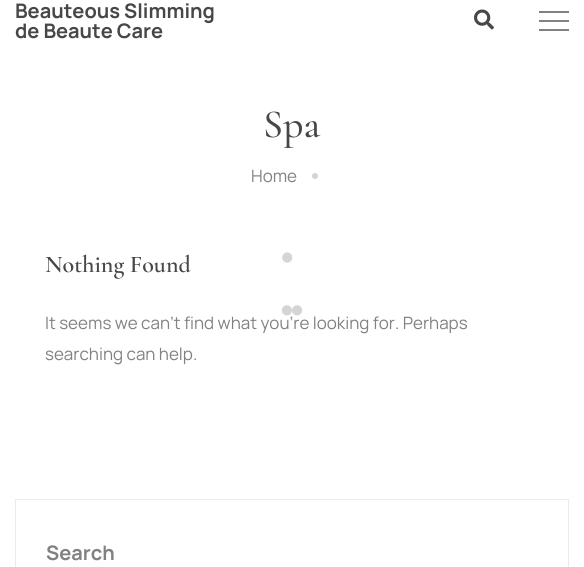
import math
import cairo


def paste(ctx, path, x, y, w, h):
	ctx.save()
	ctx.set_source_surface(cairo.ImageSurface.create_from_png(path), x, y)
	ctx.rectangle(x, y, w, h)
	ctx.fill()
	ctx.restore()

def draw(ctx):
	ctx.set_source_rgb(1, 1, 1)
	ctx.paint()
	ctx.select_font_face('Manrope', cairo.FONT_SLANT_NORMAL, cairo.FONT_WEIGHT_BOLD)
	ctx.set_font_size(20)
	ctx.set_source_rgb(0.278, 0.278, 0.278)
	ctx.move_to(15, 18)
	ctx.show_text('Beauteous Slimming')
	ctx.move_to(15, 38)
	ctx.show_text('de Beaute Care')
	ctx.set_source_rgb(0.506, 0.506, 0.506)
	ctx.rectangle(539, 11, 30, 2)
	ctx.rectangle(539, 20, 30, 2)
	ctx.rectangle(539, 29, 30, 2)
	ctx.fill()
	paste(ctx, 'media/1.png', 474, 9, 20, 21)
	ctx.select_font_face('Cormorant Garamond Medium')
	ctx.set_font_size(40)
	ctx.set_source_rgb(0.278, 0.278, 0.278)
	ctx.move_to(263, 137)
	ctx.show_text('Spa')
	ctx.select_font_face('Manrope')
	ctx.set_font_size(17)
	ctx.set_source_rgb(0.506, 0.506, 0.506)
	ctx.move_to(251, 182)
	ctx.show_text('Home')
	ctx.set_source_rgb(0.831, 0.831, 0.831)
	ctx.new_path()
	ctx.arc(315, 176, 3, 0, 2 * math.pi)
	ctx.fill()
	paste(ctx, 'media/2.png', 281, 252, 22, 64)
	ctx.select_font_face('Cormorant Garamond SemiBold')
	ctx.set_font_size(24)
	ctx.set_source_rgb(0.278, 0.278, 0.278)
	ctx.move_to(45, 272)
	ctx.show_text('Nothing Found')
	ctx.select_font_face('Manrope')
	ctx.set_font_size(17)
	ctx.set_source_rgb(0.506, 0.506, 0.506)
	ctx.move_to(45, 329)
	ctx.show_text('It seems we can’t find what you’re looking for. Perhaps')
	ctx.move_to(45, 360)
	ctx.show_text('searching can help.')
	ctx.rectangle(15.5, 499.5, 553, 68)
	ctx.set_source_rgb(0.918, 0.918, 0.918)
	ctx.set_line_width(1)
	ctx.stroke()
	ctx.select_font_face('Manrope', cairo.FONT_SLANT_NORMAL, cairo.FONT_WEIGHT_BOLD)
	ctx.set_font_size(20)
	ctx.set_source_rgb(0.506, 0.506, 0.506)
	ctx.move_to(46, 560)
	ctx.show_text('Search')


surface = cairo.ImageSurface(cairo.FORMAT_RGB24, 584, 567)
ctx = cairo.Context(surface)
options = cairo.FontOptions()
options.set_hint_metrics(cairo.HINT_METRICS_OFF)
options.set_hint_style(cairo.HINT_STYLE_NONE)
ctx.set_font_options(options)
ctx.set_miter_limit(4)
draw(ctx)
surface.write_to_png('image.png')
